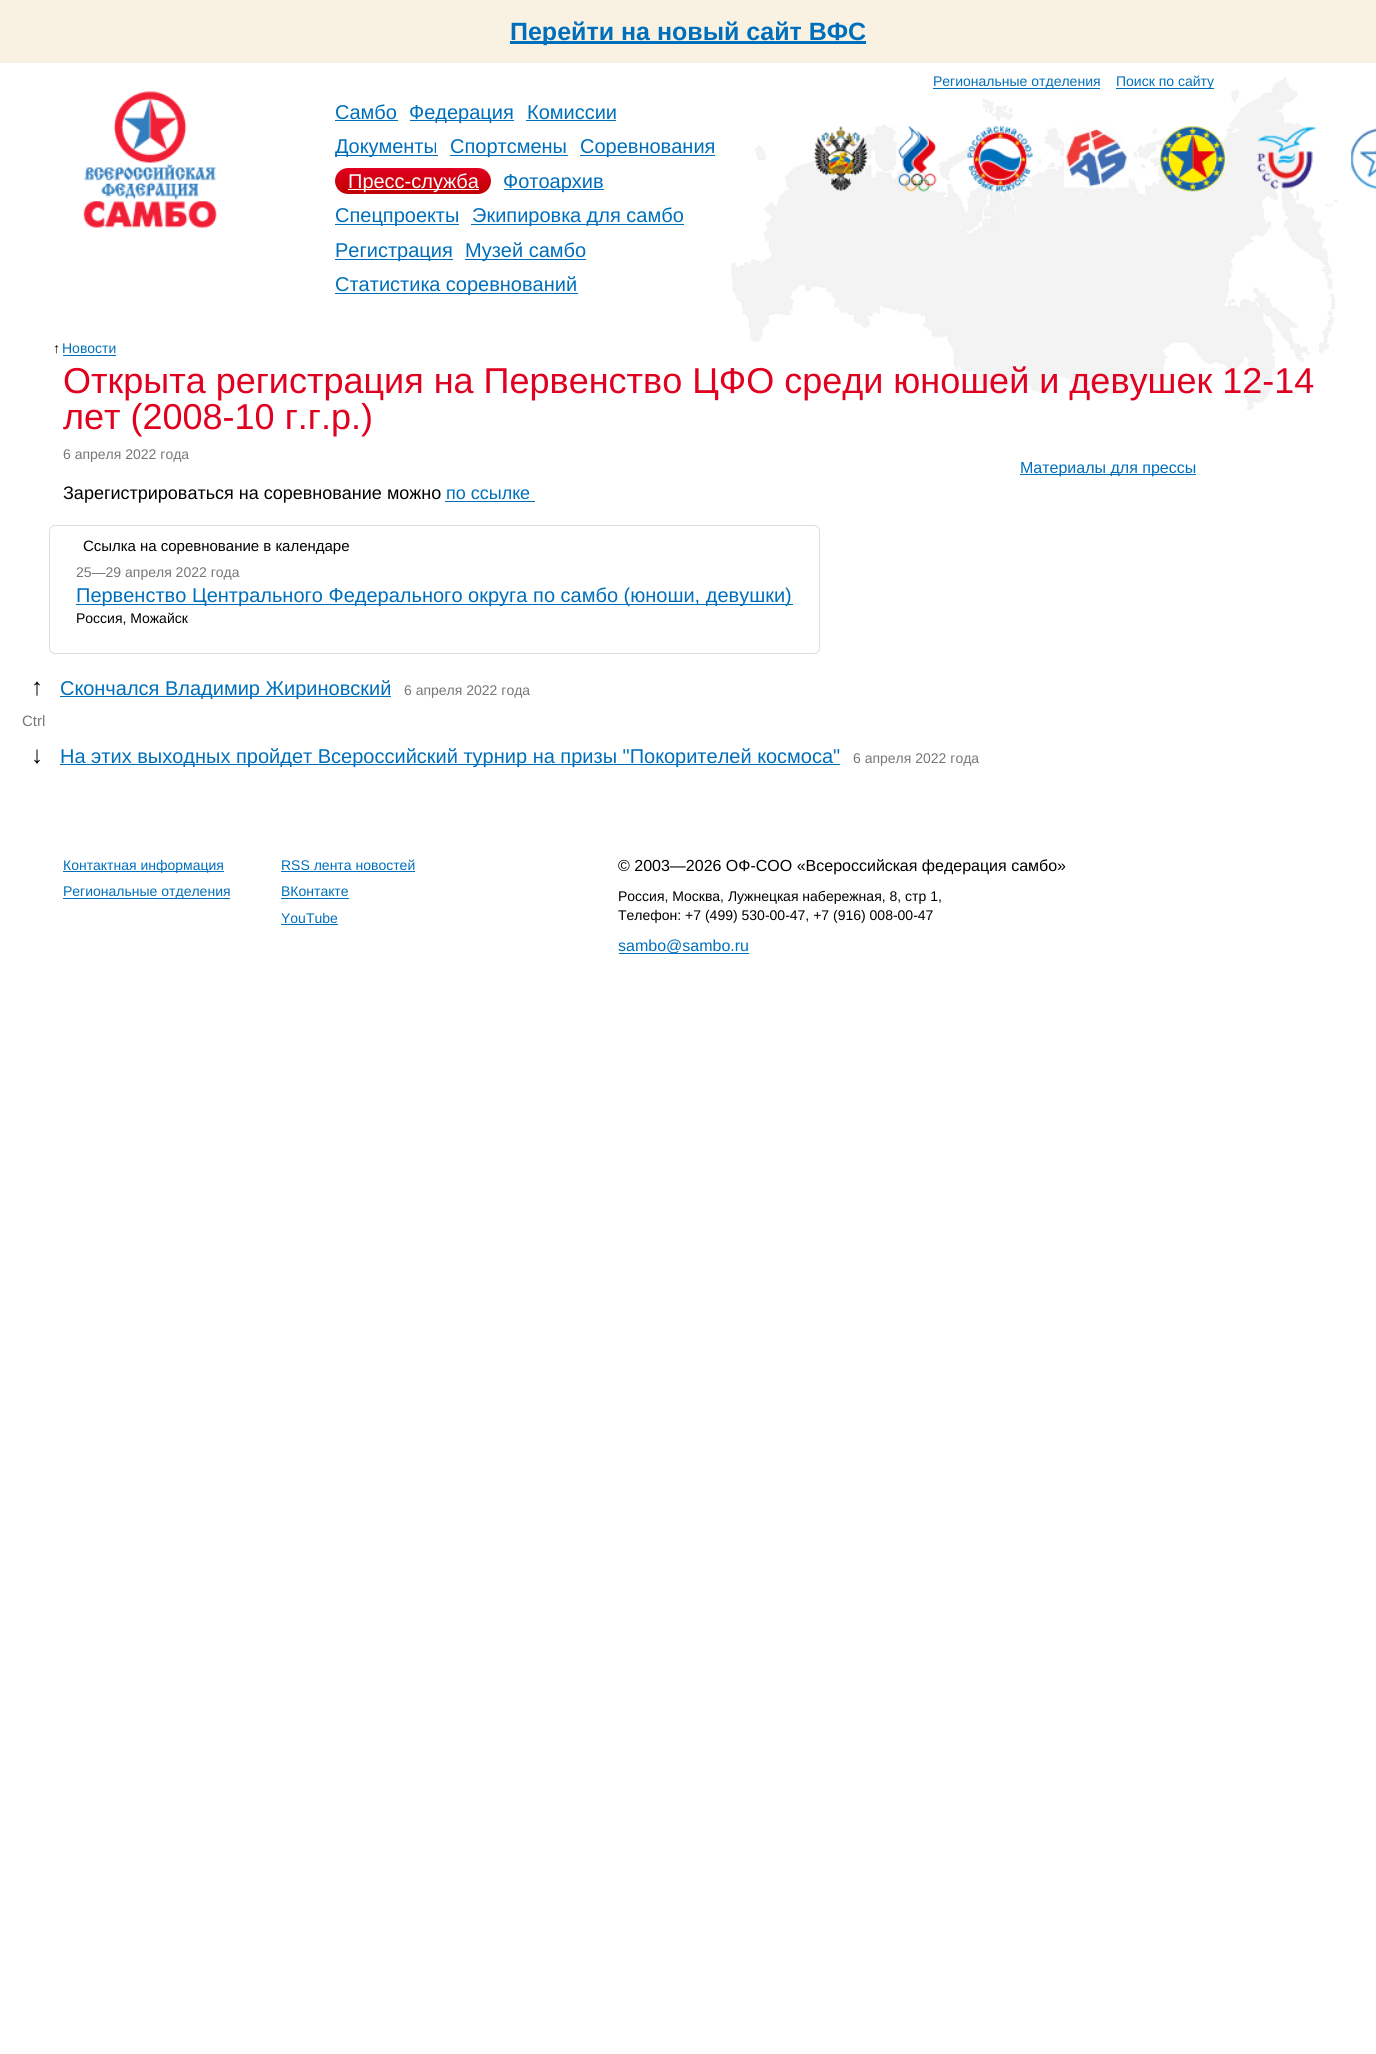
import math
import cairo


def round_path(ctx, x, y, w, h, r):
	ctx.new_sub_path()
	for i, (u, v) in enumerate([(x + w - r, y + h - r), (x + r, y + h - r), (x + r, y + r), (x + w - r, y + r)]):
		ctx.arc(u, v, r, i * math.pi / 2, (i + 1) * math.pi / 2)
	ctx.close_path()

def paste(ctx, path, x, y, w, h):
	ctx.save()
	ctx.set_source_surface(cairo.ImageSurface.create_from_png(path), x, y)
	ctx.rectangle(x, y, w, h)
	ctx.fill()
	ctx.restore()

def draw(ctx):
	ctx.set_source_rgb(1, 1, 1)
	ctx.paint()
	ctx.set_source_rgb(0.976, 0.949, 0.886)
	ctx.rectangle(0, 0, 1376, 63)
	ctx.fill()
	ctx.set_source_rgb(0, 0.435, 0.733)
	ctx.rectangle(510, 41, 356, 3)
	ctx.fill()
	ctx.select_font_face('Liberation Sans', cairo.FONT_SLANT_NORMAL, cairo.FONT_WEIGHT_BOLD)
	ctx.set_font_size(25)
	ctx.move_to(510, 40)
	ctx.show_text('Перейти на новый сайт ВФС')
	paste(ctx, 'media/1.png', 731, 77, 607, 333)
	ctx.rectangle(933, 88, 167, 1)
	ctx.fill()
	ctx.select_font_face('Liberation Sans')
	ctx.set_font_size(14)
	ctx.move_to(933, 86)
	ctx.show_text('Региональные отделения')
	ctx.rectangle(1116, 88, 98, 1)
	ctx.fill()
	ctx.move_to(1116, 86)
	ctx.show_text('Поиск по сайту')
	paste(ctx, 'media/2.png', 83, 91, 134, 137)
	ctx.set_font_size(20)
	ctx.move_to(335, 119)
	ctx.show_text('Самбо')
	ctx.rectangle(335, 120, 63, 1)
	ctx.fill()
	ctx.rectangle(410, 120, 104, 1)
	ctx.fill()
	ctx.move_to(409, 119)
	ctx.show_text('Федерация')
	ctx.move_to(527, 119)
	ctx.show_text('Комиссии')
	ctx.rectangle(526, 120, 90, 1)
	ctx.fill()
	ctx.rectangle(335, 155, 103, 1)
	ctx.fill()
	ctx.move_to(335, 153)
	ctx.show_text('Документы')
	ctx.rectangle(450, 155, 118, 1)
	ctx.fill()
	ctx.move_to(450, 153)
	ctx.show_text('Спортсмены')
	ctx.rectangle(580, 155, 135, 1)
	ctx.fill()
	ctx.move_to(580, 153)
	ctx.show_text('Соревнования')
	gradient = cairo.LinearGradient(335, 168, 335, 194)
	gradient.add_color_stop_rgba(0, 0.878, 0, 0.125, 1)
	gradient.add_color_stop_rgba(1, 0.753, 0.004, 0.004, 1)
	ctx.set_source(gradient)
	round_path(ctx, 335, 168, 156, 26, 13)
	ctx.fill()
	ctx.set_source_rgb(1, 1, 1)
	ctx.rectangle(348, 189, 131, 1)
	ctx.fill()
	ctx.move_to(348, 188)
	ctx.show_text('Пресс-служба')
	ctx.set_source_rgb(0, 0.435, 0.733)
	ctx.rectangle(504, 189, 100, 1)
	ctx.fill()
	ctx.move_to(503, 188)
	ctx.show_text('Фотоархив')
	ctx.rectangle(335, 224, 124, 1)
	ctx.fill()
	ctx.move_to(335, 222)
	ctx.show_text('Спецпроекты')
	ctx.rectangle(471, 224, 213, 1)
	ctx.fill()
	ctx.move_to(472, 222)
	ctx.show_text('Экипировка для самбо')
	ctx.rectangle(335, 259, 118, 1)
	ctx.fill()
	ctx.move_to(335, 257)
	ctx.show_text('Регистрация')
	ctx.rectangle(465, 259, 121, 1)
	ctx.fill()
	ctx.move_to(465, 257)
	ctx.show_text('Музей самбо')
	ctx.rectangle(335, 293, 243, 1)
	ctx.fill()
	ctx.move_to(335, 291)
	ctx.show_text('Статистика соревнований')
	paste(ctx, 'media/3.png', 813, 126, 55, 66)
	paste(ctx, 'media/4.png', 898, 126, 39, 66)
	paste(ctx, 'media/5.png', 967, 126, 66, 66)
	paste(ctx, 'media/6.png', 1064, 126, 65, 62)
	paste(ctx, 'media/7.png', 1160, 126, 65, 66)
	paste(ctx, 'media/8.png', 1257, 126, 60, 63)
	paste(ctx, 'media/9.png', 1351, 128, 25, 61)
	ctx.set_font_size(14)
	ctx.set_source_rgb(0, 0, 0)
	ctx.move_to(53, 353)
	ctx.show_text('↑')
	ctx.set_source_rgb(0, 0.435, 0.733)
	ctx.move_to(62, 353)
	ctx.show_text('Новости')
	ctx.rectangle(63, 355, 53, 1)
	ctx.fill()
	ctx.set_font_size(36)
	ctx.set_source_rgb(0.878, 0, 0.125)
	ctx.move_to(63, 393)
	ctx.show_text('Открыта регистрация на Первенство ЦФО среди юношей и девушек 12-14')
	ctx.move_to(63, 429)
	ctx.show_text('лет (2008-10 г.г.р.)')
	ctx.set_font_size(14)
	ctx.set_source_rgb(0.467, 0.467, 0.467)
	ctx.move_to(63, 459)
	ctx.show_text('6 апреля 2022 года')
	ctx.set_font_size(18)
	ctx.set_source_rgb(0, 0, 0)
	ctx.move_to(63, 499)
	ctx.show_text('Зарегистрироваться на соревнование можно')
	ctx.set_source_rgb(0, 0.435, 0.733)
	ctx.move_to(446, 499)
	ctx.show_text('по ссылке')
	ctx.rectangle(445, 501, 90, 1)
	ctx.fill()
	ctx.rectangle(76, 604, 717, 1)
	ctx.fill()
	round_path(ctx, 49.5, 525.5, 770, 128, 5.5)
	ctx.set_source_rgb(0.867, 0.867, 0.867)
	ctx.set_line_width(1)
	ctx.stroke()
	ctx.set_font_size(15)
	ctx.set_source_rgb(0, 0, 0)
	ctx.move_to(83, 551)
	ctx.show_text('Ссылка на соревнование в календаре')
	ctx.set_font_size(14)
	ctx.set_source_rgb(0.467, 0.467, 0.467)
	ctx.move_to(76, 577)
	ctx.show_text('25—29 апреля 2022 года')
	ctx.set_font_size(20)
	ctx.set_source_rgb(0, 0.435, 0.733)
	ctx.move_to(76, 602)
	ctx.show_text('Первенство Центрального Федерального округа по самбо (юноши, девушки)')
	ctx.set_font_size(14)
	ctx.set_source_rgb(0, 0, 0)
	ctx.move_to(76, 623)
	ctx.show_text('Россия, Можайск')
	ctx.set_font_size(24)
	ctx.move_to(31, 695)
	ctx.show_text('↑')
	ctx.set_source_rgb(0, 0.435, 0.733)
	ctx.rectangle(60, 696, 331, 1)
	ctx.fill()
	ctx.set_font_size(20)
	ctx.move_to(60, 695)
	ctx.show_text('Скончался Владимир Жириновский')
	ctx.set_font_size(14)
	ctx.set_source_rgb(0.467, 0.467, 0.467)
	ctx.move_to(404, 695)
	ctx.show_text('6 апреля 2022 года')
	ctx.set_font_size(15)
	ctx.move_to(22, 726)
	ctx.show_text('Ctrl')
	ctx.set_font_size(24)
	ctx.set_source_rgb(0, 0, 0)
	ctx.move_to(31, 763)
	ctx.show_text('↓')
	ctx.set_source_rgb(0, 0.435, 0.733)
	ctx.rectangle(60, 764, 780, 1)
	ctx.fill()
	ctx.set_font_size(20)
	ctx.move_to(60, 763)
	ctx.show_text('На этих выходных пройдет Всероссийский турнир на призы "Покорителей космоса"')
	ctx.set_font_size(14)
	ctx.set_source_rgb(0.467, 0.467, 0.467)
	ctx.move_to(853, 763)
	ctx.show_text('6 апреля 2022 года')
	ctx.set_source_rgb(0, 0.435, 0.733)
	ctx.rectangle(1020, 474, 176, 1)
	ctx.fill()
	ctx.set_font_size(16)
	ctx.move_to(1020, 473)
	ctx.show_text('Материалы для прессы')
	ctx.rectangle(63, 871, 161, 1)
	ctx.fill()
	ctx.set_font_size(14)
	ctx.move_to(63, 870)
	ctx.show_text('Контактная информация')
	ctx.rectangle(63, 898, 167, 1)
	ctx.fill()
	ctx.move_to(63, 896)
	ctx.show_text('Региональные отделения')
	ctx.move_to(281, 870)
	ctx.show_text('RSS лента новостей')
	ctx.rectangle(281, 871, 134, 1)
	ctx.fill()
	ctx.move_to(281, 896)
	ctx.show_text('ВКонтакте')
	ctx.rectangle(281, 898, 68, 1)
	ctx.fill()
	ctx.move_to(281, 923)
	ctx.show_text('YouTube')
	ctx.rectangle(281, 924, 57, 1)
	ctx.fill()
	ctx.set_font_size(16)
	ctx.set_source_rgb(0, 0, 0)
	ctx.move_to(618, 871)
	ctx.show_text('© 2003—2026 ОФ-СОО «Всероссийская федерация самбо»')
	ctx.set_font_size(14)
	ctx.move_to(618, 901)
	ctx.show_text('Россия, Москва, Лужнецкая набережная, 8, стр 1,')
	ctx.move_to(618, 920)
	ctx.show_text('Телефон: +7 (499) 530-00-47, +7 (916) 008-00-47')
	ctx.set_source_rgb(0, 0.435, 0.733)
	ctx.rectangle(619, 953, 130, 1)
	ctx.fill()
	ctx.set_font_size(16)
	ctx.move_to(618, 951)
	ctx.show_text('sambo@sambo.ru')


surface = cairo.ImageSurface(cairo.FORMAT_RGB24, 1376, 2054)
ctx = cairo.Context(surface)
options = cairo.FontOptions()
options.set_hint_metrics(cairo.HINT_METRICS_OFF)
options.set_hint_style(cairo.HINT_STYLE_NONE)
ctx.set_font_options(options)
ctx.set_miter_limit(4)
draw(ctx)
surface.write_to_png('image.png')
